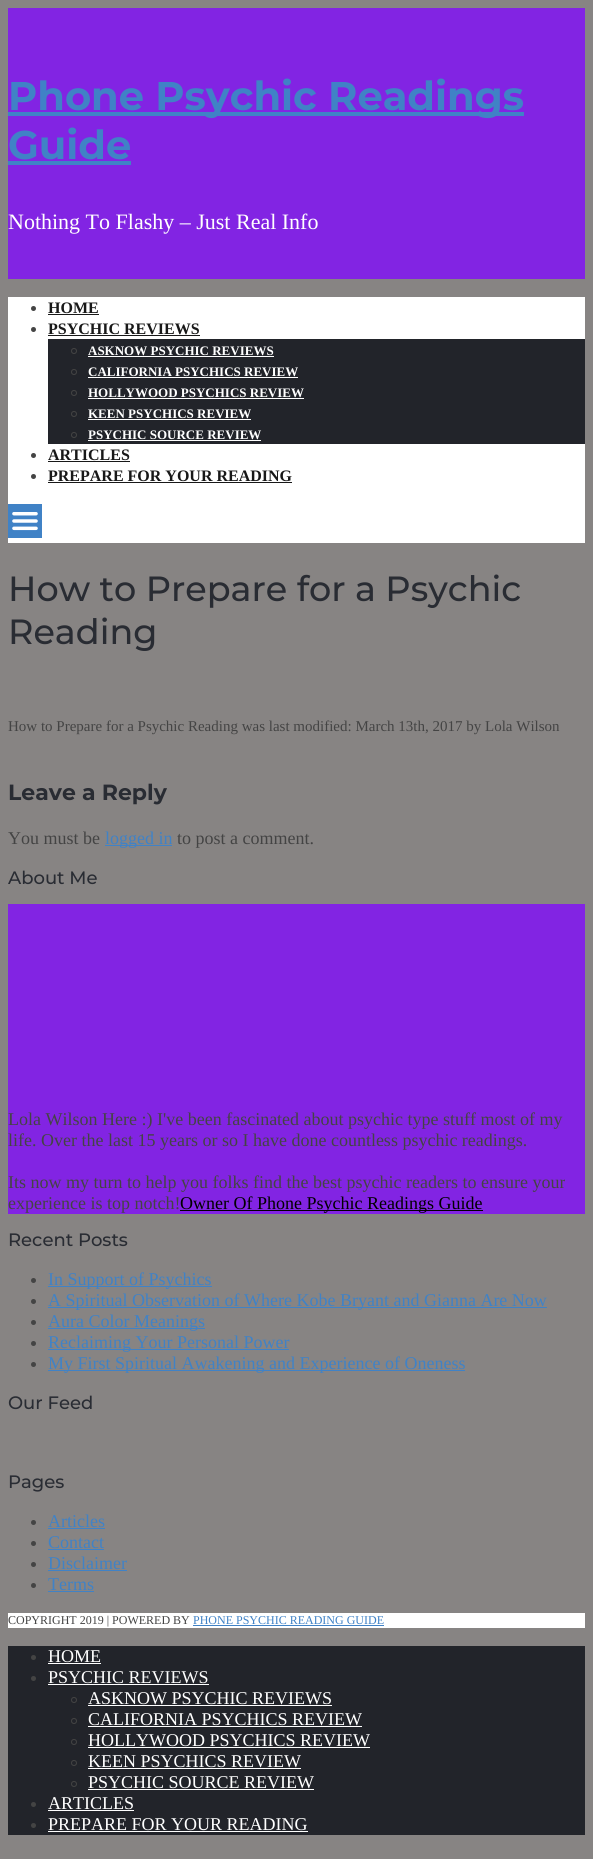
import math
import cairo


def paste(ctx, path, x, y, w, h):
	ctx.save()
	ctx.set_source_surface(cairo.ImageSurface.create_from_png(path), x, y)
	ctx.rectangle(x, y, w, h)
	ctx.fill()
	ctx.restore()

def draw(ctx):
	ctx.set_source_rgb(0.529, 0.518, 0.514)
	ctx.paint()
	ctx.set_source_rgb(0.51, 0.141, 0.89)
	ctx.rectangle(8, 8, 577, 271)
	ctx.fill()
	ctx.set_source_rgb(0.251, 0.51, 0.776)
	ctx.rectangle(8, 112, 516, 4)
	ctx.fill()
	ctx.select_font_face('Montserrat', cairo.FONT_SLANT_NORMAL, cairo.FONT_WEIGHT_BOLD)
	ctx.set_font_size(40)
	ctx.move_to(8, 110)
	ctx.show_text('Phone Psychic Readings')
	ctx.move_to(8, 159)
	ctx.show_text('Guide')
	ctx.rectangle(8, 161, 123, 4)
	ctx.fill()
	ctx.select_font_face('Liberation Serif')
	ctx.set_font_size(22)
	ctx.set_source_rgb(1, 1, 1)
	ctx.move_to(8, 229)
	ctx.show_text('Nothing To Flashy – Just Real Info')
	ctx.rectangle(8, 297, 577, 246)
	ctx.fill()
	ctx.set_source_rgb(0.267, 0.267, 0.267)
	ctx.arc(33.5, 308.5, 2.5, 0, 2 * math.pi)
	ctx.fill()
	ctx.select_font_face('Liberation Serif', cairo.FONT_SLANT_NORMAL, cairo.FONT_WEIGHT_BOLD)
	ctx.set_font_size(16)
	ctx.set_source_rgb(0.094, 0.094, 0.094)
	ctx.move_to(48, 313)
	ctx.show_text('HOME')
	ctx.rectangle(48, 314, 51, 1)
	ctx.fill()
	ctx.set_source_rgb(0.267, 0.267, 0.267)
	ctx.arc(33.5, 329.5, 2.5, 0, 2 * math.pi)
	ctx.fill()
	ctx.set_source_rgb(0.094, 0.094, 0.094)
	ctx.move_to(48, 334)
	ctx.show_text('PSYCHIC REVIEWS')
	ctx.rectangle(48, 335, 152, 1)
	ctx.fill()
	ctx.set_source_rgb(0.133, 0.141, 0.165)
	ctx.rectangle(48, 339, 537, 105)
	ctx.fill()
	ctx.arc(74, 351, 2.5, 0, 2 * math.pi)
	ctx.set_source_rgb(0.267, 0.267, 0.267)
	ctx.set_line_width(1)
	ctx.stroke()
	ctx.set_font_size(13)
	ctx.set_source_rgb(1, 1, 1)
	ctx.move_to(88, 355)
	ctx.show_text('ASKNOW PSYCHIC REVIEWS')
	ctx.rectangle(88, 356, 186, 1)
	ctx.fill()
	ctx.arc(74, 372, 2.5, 0, 2 * math.pi)
	ctx.set_source_rgb(0.267, 0.267, 0.267)
	ctx.stroke()
	ctx.set_source_rgb(1, 1, 1)
	ctx.move_to(88, 376)
	ctx.show_text('CALIFORNIA PSYCHICS REVIEW')
	ctx.rectangle(88, 377, 210, 1)
	ctx.fill()
	ctx.arc(74, 393, 2.5, 0, 2 * math.pi)
	ctx.set_source_rgb(0.267, 0.267, 0.267)
	ctx.stroke()
	ctx.set_source_rgb(1, 1, 1)
	ctx.move_to(88, 397)
	ctx.show_text('HOLLYWOOD PSYCHICS REVIEW')
	ctx.rectangle(88, 398, 216, 1)
	ctx.fill()
	ctx.arc(74, 414, 2.5, 0, 2 * math.pi)
	ctx.set_source_rgb(0.267, 0.267, 0.267)
	ctx.stroke()
	ctx.set_source_rgb(1, 1, 1)
	ctx.move_to(88, 418)
	ctx.show_text('KEEN PSYCHICS REVIEW')
	ctx.rectangle(88, 419, 163, 1)
	ctx.fill()
	ctx.arc(74, 435, 2.5, 0, 2 * math.pi)
	ctx.set_source_rgb(0.267, 0.267, 0.267)
	ctx.stroke()
	ctx.set_source_rgb(1, 1, 1)
	ctx.move_to(88, 439)
	ctx.show_text('PSYCHIC SOURCE REVIEW')
	ctx.rectangle(88, 440, 173, 1)
	ctx.fill()
	ctx.set_source_rgb(0.267, 0.267, 0.267)
	ctx.arc(33.5, 455.5, 2.5, 0, 2 * math.pi)
	ctx.fill()
	ctx.set_font_size(16)
	ctx.set_source_rgb(0.094, 0.094, 0.094)
	ctx.move_to(48, 460)
	ctx.show_text('ARTICLES')
	ctx.rectangle(48, 461, 82, 1)
	ctx.fill()
	ctx.set_source_rgb(0.267, 0.267, 0.267)
	ctx.arc(33.5, 476.5, 2.5, 0, 2 * math.pi)
	ctx.fill()
	ctx.set_source_rgb(0.094, 0.094, 0.094)
	ctx.move_to(48, 481)
	ctx.show_text('PREPARE FOR YOUR READING')
	ctx.rectangle(48, 482, 244, 1)
	ctx.fill()
	paste(ctx, 'media/1.png', 8, 504, 34, 34)
	ctx.select_font_face('Montserrat Medium')
	ctx.set_font_size(35)
	ctx.set_source_rgb(0.161, 0.173, 0.2)
	ctx.move_to(8, 601)
	ctx.show_text('How to Prepare for a Psychic')
	ctx.move_to(8, 644)
	ctx.show_text('Reading')
	ctx.select_font_face('Liberation Serif')
	ctx.set_font_size(15)
	ctx.set_source_rgb(0.267, 0.267, 0.267)
	ctx.move_to(8, 731)
	ctx.show_text('How to Prepare for a Psychic Reading was last modified: March 13th, 2017 by Lola Wilson')
	ctx.select_font_face('Montserrat', cairo.FONT_SLANT_NORMAL, cairo.FONT_WEIGHT_BOLD)
	ctx.set_font_size(22)
	ctx.set_source_rgb(0.161, 0.173, 0.2)
	ctx.move_to(8, 800)
	ctx.show_text('Leave a Reply')
	ctx.select_font_face('Liberation Serif')
	ctx.set_font_size(18)
	ctx.set_source_rgb(0.267, 0.267, 0.267)
	ctx.move_to(8, 844)
	ctx.show_text('You must be')
	ctx.set_source_rgb(0.251, 0.51, 0.776)
	ctx.rectangle(105, 845, 67, 1)
	ctx.fill()
	ctx.move_to(105, 844)
	ctx.show_text('logged in')
	ctx.set_source_rgb(0.267, 0.267, 0.267)
	ctx.move_to(177, 844)
	ctx.show_text('to post a comment.')
	ctx.select_font_face('Montserrat Medium')
	ctx.set_source_rgb(0.161, 0.173, 0.2)
	ctx.move_to(8, 884)
	ctx.show_text('About Me')
	ctx.set_source_rgb(0.51, 0.141, 0.89)
	ctx.rectangle(8, 904, 577, 310)
	ctx.fill()
	ctx.select_font_face('Liberation Serif')
	ctx.set_source_rgb(0.267, 0.267, 0.267)
	for x, y, s in [
		(8, 1125, 'Lola Wilson Here :) I\'ve been fascinated about psychic type stuff most of my'),
		(8, 1146, 'life. Over the last 15 years or so I have done countless psychic readings.'),
		(8, 1188, 'Its now my turn to help you folks find the best psychic readers to ensure your'),
		(8, 1209, 'experience is top notch!'),
	]:
		ctx.move_to(x, y)
		ctx.show_text(s)
	ctx.set_source_rgb(0, 0, 0)
	ctx.rectangle(180, 1210, 303, 1)
	ctx.fill()
	ctx.move_to(180, 1209)
	ctx.show_text('Owner Of Phone Psychic Readings Guide')
	ctx.select_font_face('Montserrat Medium')
	ctx.set_source_rgb(0.161, 0.173, 0.2)
	ctx.move_to(8, 1246)
	ctx.show_text('Recent Posts')
	ctx.set_source_rgb(0.267, 0.267, 0.267)
	ctx.new_path()
	ctx.arc(33.5, 1280.5, 2.5, 0, 2 * math.pi)
	ctx.fill()
	ctx.set_source_rgb(0.251, 0.51, 0.776)
	ctx.rectangle(48, 1286, 164, 1)
	ctx.fill()
	ctx.select_font_face('Liberation Serif')
	ctx.move_to(48, 1285)
	ctx.show_text('In Support of Psychics')
	ctx.set_source_rgb(0.267, 0.267, 0.267)
	ctx.new_path()
	ctx.arc(33.5, 1301.5, 2.5, 0, 2 * math.pi)
	ctx.fill()
	ctx.set_source_rgb(0.251, 0.51, 0.776)
	ctx.rectangle(48, 1307, 499, 1)
	ctx.fill()
	ctx.move_to(48, 1306)
	ctx.show_text('A Spiritual Observation of Where Kobe Bryant and Gianna Are Now')
	ctx.set_source_rgb(0.267, 0.267, 0.267)
	ctx.new_path()
	ctx.arc(33.5, 1322.5, 2.5, 0, 2 * math.pi)
	ctx.fill()
	ctx.set_source_rgb(0.251, 0.51, 0.776)
	ctx.rectangle(48, 1328, 157, 1)
	ctx.fill()
	ctx.move_to(48, 1327)
	ctx.show_text('Aura Color Meanings')
	ctx.set_source_rgb(0.267, 0.267, 0.267)
	ctx.new_path()
	ctx.arc(33.5, 1343.5, 2.5, 0, 2 * math.pi)
	ctx.fill()
	ctx.set_source_rgb(0.251, 0.51, 0.776)
	ctx.rectangle(48, 1349, 241, 1)
	ctx.fill()
	ctx.move_to(48, 1348)
	ctx.show_text('Reclaiming Your Personal Power')
	ctx.set_source_rgb(0.267, 0.267, 0.267)
	ctx.new_path()
	ctx.arc(33.5, 1364.5, 2.5, 0, 2 * math.pi)
	ctx.fill()
	ctx.set_source_rgb(0.251, 0.51, 0.776)
	ctx.rectangle(48, 1370, 417, 1)
	ctx.fill()
	ctx.move_to(48, 1369)
	ctx.show_text('My First Spiritual Awakening and Experience of Oneness')
	ctx.select_font_face('Montserrat Medium')
	ctx.set_source_rgb(0.161, 0.173, 0.2)
	ctx.move_to(8, 1409)
	ctx.show_text('Our Feed')
	ctx.move_to(8, 1488)
	ctx.show_text('Pages')
	ctx.set_source_rgb(0.267, 0.267, 0.267)
	ctx.new_path()
	ctx.arc(33.5, 1522.5, 2.5, 0, 2 * math.pi)
	ctx.fill()
	ctx.select_font_face('Liberation Serif')
	ctx.set_source_rgb(0.251, 0.51, 0.776)
	ctx.move_to(48, 1527)
	ctx.show_text('Articles')
	ctx.rectangle(48, 1528, 57, 1)
	ctx.fill()
	ctx.set_source_rgb(0.267, 0.267, 0.267)
	ctx.arc(33.5, 1543.5, 2.5, 0, 2 * math.pi)
	ctx.fill()
	ctx.set_source_rgb(0.251, 0.51, 0.776)
	ctx.move_to(48, 1548)
	ctx.show_text('Contact')
	ctx.rectangle(48, 1549, 56, 1)
	ctx.fill()
	ctx.set_source_rgb(0.267, 0.267, 0.267)
	ctx.arc(33.5, 1564.5, 2.5, 0, 2 * math.pi)
	ctx.fill()
	ctx.set_source_rgb(0.251, 0.51, 0.776)
	ctx.move_to(48, 1569)
	ctx.show_text('Disclaimer')
	ctx.rectangle(48, 1570, 79, 1)
	ctx.fill()
	ctx.set_source_rgb(0.267, 0.267, 0.267)
	ctx.arc(33.5, 1585.5, 2.5, 0, 2 * math.pi)
	ctx.fill()
	ctx.set_source_rgb(0.251, 0.51, 0.776)
	ctx.move_to(48, 1590)
	ctx.show_text('Terms')
	ctx.rectangle(48, 1591, 46, 1)
	ctx.fill()
	ctx.set_source_rgb(1, 1, 1)
	ctx.rectangle(8, 1613, 577, 15)
	ctx.fill()
	ctx.set_font_size(12)
	ctx.set_source_rgb(0.267, 0.267, 0.267)
	ctx.move_to(8, 1624)
	ctx.show_text('COPYRIGHT 2019 | POWERED BY')
	ctx.set_source_rgb(0.251, 0.51, 0.776)
	ctx.move_to(193, 1624)
	ctx.show_text('PHONE PSYCHIC READING GUIDE')
	ctx.rectangle(193, 1625, 191, 1)
	ctx.fill()
	ctx.set_source_rgb(0.133, 0.141, 0.165)
	ctx.rectangle(8, 1646, 577, 189)
	ctx.fill()
	ctx.set_source_rgb(0.267, 0.267, 0.267)
	ctx.arc(33.5, 1657.5, 2.5, 0, 2 * math.pi)
	ctx.fill()
	ctx.set_font_size(18)
	ctx.set_source_rgb(1, 1, 1)
	ctx.move_to(48, 1662)
	ctx.show_text('HOME')
	ctx.rectangle(48, 1663, 53, 1)
	ctx.fill()
	ctx.set_source_rgb(0.267, 0.267, 0.267)
	ctx.arc(33.5, 1678.5, 2.5, 0, 2 * math.pi)
	ctx.fill()
	ctx.set_source_rgb(1, 1, 1)
	ctx.move_to(48, 1683)
	ctx.show_text('PSYCHIC REVIEWS')
	ctx.rectangle(48, 1684, 161, 1)
	ctx.fill()
	ctx.arc(74, 1700, 2.5, 0, 2 * math.pi)
	ctx.set_source_rgb(0.267, 0.267, 0.267)
	ctx.stroke()
	ctx.set_source_rgb(1, 1, 1)
	ctx.move_to(88, 1704)
	ctx.show_text('ASKNOW PSYCHIC REVIEWS')
	ctx.rectangle(88, 1705, 244, 1)
	ctx.fill()
	ctx.arc(74, 1721, 2.5, 0, 2 * math.pi)
	ctx.set_source_rgb(0.267, 0.267, 0.267)
	ctx.stroke()
	ctx.set_source_rgb(1, 1, 1)
	ctx.move_to(88, 1725)
	ctx.show_text('CALIFORNIA PSYCHICS REVIEW')
	ctx.rectangle(88, 1726, 274, 1)
	ctx.fill()
	ctx.arc(74, 1742, 2.5, 0, 2 * math.pi)
	ctx.set_source_rgb(0.267, 0.267, 0.267)
	ctx.stroke()
	ctx.set_source_rgb(1, 1, 1)
	ctx.move_to(88, 1746)
	ctx.show_text('HOLLYWOOD PSYCHICS REVIEW')
	ctx.rectangle(88, 1747, 282, 1)
	ctx.fill()
	ctx.arc(74, 1763, 2.5, 0, 2 * math.pi)
	ctx.set_source_rgb(0.267, 0.267, 0.267)
	ctx.stroke()
	ctx.set_source_rgb(1, 1, 1)
	ctx.move_to(88, 1767)
	ctx.show_text('KEEN PSYCHICS REVIEW')
	ctx.rectangle(88, 1768, 213, 1)
	ctx.fill()
	ctx.arc(74, 1784, 2.5, 0, 2 * math.pi)
	ctx.set_source_rgb(0.267, 0.267, 0.267)
	ctx.stroke()
	ctx.set_source_rgb(1, 1, 1)
	ctx.move_to(88, 1788)
	ctx.show_text('PSYCHIC SOURCE REVIEW')
	ctx.rectangle(88, 1789, 226, 1)
	ctx.fill()
	ctx.set_source_rgb(0.267, 0.267, 0.267)
	ctx.arc(33.5, 1804.5, 2.5, 0, 2 * math.pi)
	ctx.fill()
	ctx.set_source_rgb(1, 1, 1)
	ctx.move_to(48, 1809)
	ctx.show_text('ARTICLES')
	ctx.rectangle(48, 1810, 86, 1)
	ctx.fill()
	ctx.set_source_rgb(0.267, 0.267, 0.267)
	ctx.arc(33.5, 1825.5, 2.5, 0, 2 * math.pi)
	ctx.fill()
	ctx.set_source_rgb(1, 1, 1)
	ctx.move_to(48, 1830)
	ctx.show_text('PREPARE FOR YOUR READING')
	ctx.rectangle(48, 1831, 260, 1)
	ctx.fill()


surface = cairo.ImageSurface(cairo.FORMAT_RGB24, 593, 1859)
ctx = cairo.Context(surface)
options = cairo.FontOptions()
options.set_hint_metrics(cairo.HINT_METRICS_OFF)
options.set_hint_style(cairo.HINT_STYLE_NONE)
ctx.set_font_options(options)
ctx.set_miter_limit(4)
draw(ctx)
surface.write_to_png('image.png')
